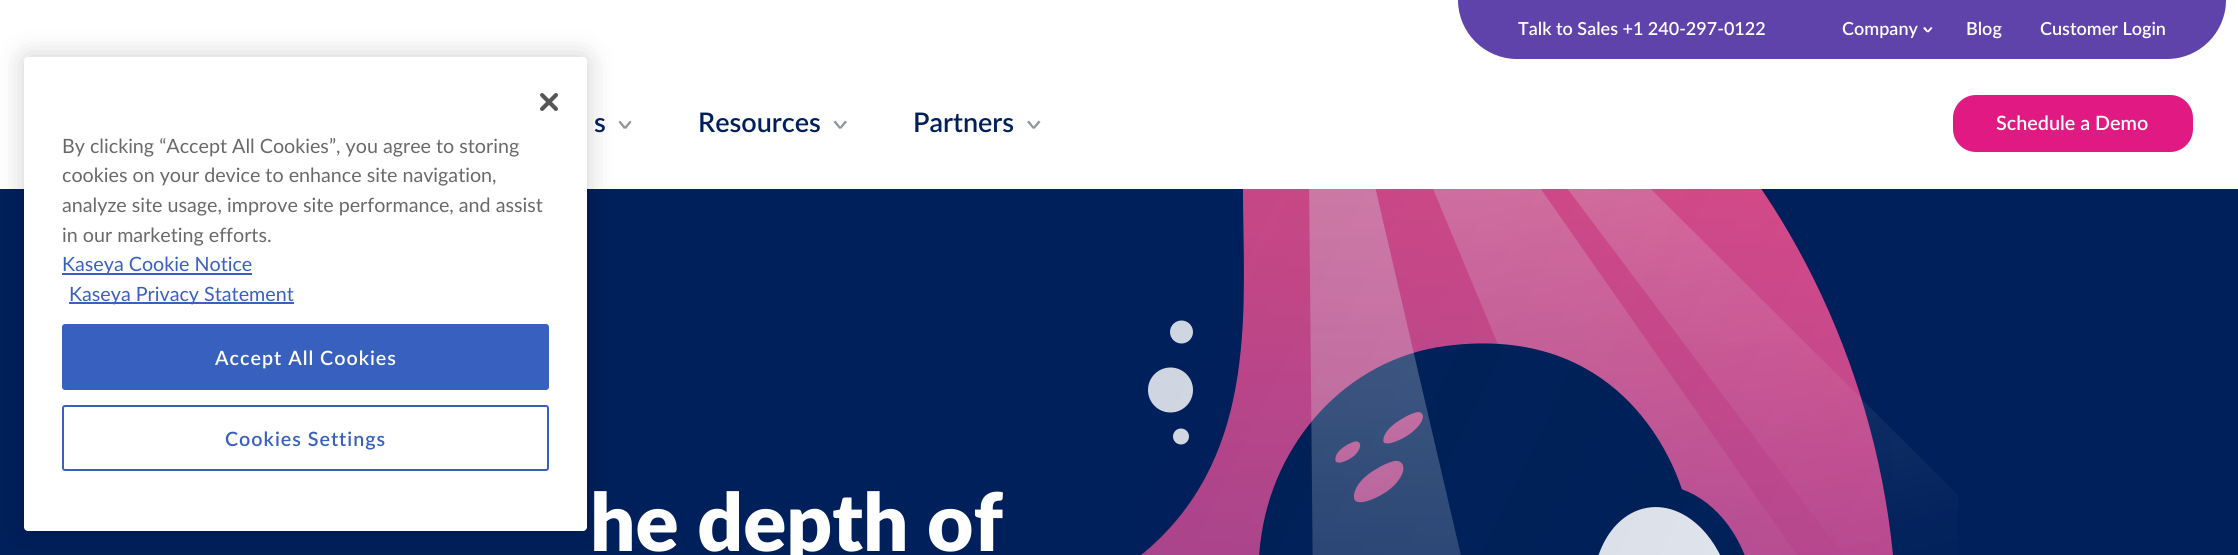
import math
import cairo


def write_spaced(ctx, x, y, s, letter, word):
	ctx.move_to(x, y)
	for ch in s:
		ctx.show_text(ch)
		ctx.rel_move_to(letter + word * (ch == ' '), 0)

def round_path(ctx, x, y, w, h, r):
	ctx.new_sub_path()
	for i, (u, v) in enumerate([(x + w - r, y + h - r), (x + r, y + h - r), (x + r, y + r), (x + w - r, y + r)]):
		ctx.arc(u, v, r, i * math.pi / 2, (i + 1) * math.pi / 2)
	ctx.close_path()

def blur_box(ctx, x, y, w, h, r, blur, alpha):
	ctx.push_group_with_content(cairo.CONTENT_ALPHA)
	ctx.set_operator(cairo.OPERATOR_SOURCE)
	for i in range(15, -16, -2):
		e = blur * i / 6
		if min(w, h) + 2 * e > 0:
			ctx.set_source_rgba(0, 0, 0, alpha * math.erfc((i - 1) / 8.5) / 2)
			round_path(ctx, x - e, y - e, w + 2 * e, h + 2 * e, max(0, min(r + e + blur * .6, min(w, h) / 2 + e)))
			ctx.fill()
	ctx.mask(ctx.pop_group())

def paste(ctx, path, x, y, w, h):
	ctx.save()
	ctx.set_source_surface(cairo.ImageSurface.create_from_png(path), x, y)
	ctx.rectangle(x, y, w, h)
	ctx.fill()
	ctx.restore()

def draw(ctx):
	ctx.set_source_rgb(0, 0.125, 0.357)
	ctx.paint()
	ctx.set_source_rgb(1, 1, 1)
	ctx.rectangle(0, 0, 2238, 189)
	ctx.fill()
	ctx.set_source_rgb(0.373, 0.259, 0.667)
	ctx.new_path()
	ctx.move_to(1458, 0)
	ctx.line_to(2226, 0)
	ctx.curve_to(2226, 32.5, 2199.5, 59, 2167, 59)
	ctx.line_to(1517, 59)
	ctx.curve_to(1484.5, 59, 1458, 32.5, 1458, 0)
	ctx.close_path()
	ctx.fill()
	ctx.select_font_face('Lato SemiBold')
	ctx.set_font_size(18)
	ctx.set_source_rgb(1, 1, 1)
	ctx.move_to(1518, 35)
	ctx.show_text('Talk to Sales +1 240-297-0122')
	ctx.move_to(1842, 35)
	ctx.show_text('Company')
	ctx.new_path()
	ctx.move_to(1931, 27)
	ctx.line_to(1932.5, 28)
	ctx.line_to(1928.5, 32.5)
	ctx.line_to(1927, 31.5)
	ctx.close_path()
	ctx.fill()
	ctx.new_path()
	ctx.move_to(1923, 28)
	ctx.line_to(1925, 27)
	ctx.line_to(1928.5, 31.5)
	ctx.line_to(1927, 32.5)
	ctx.close_path()
	ctx.fill()
	ctx.move_to(1966, 35)
	ctx.show_text('Blog')
	ctx.move_to(2040, 35)
	ctx.show_text('Customer Login')
	ctx.set_font_size(27)
	ctx.set_source_rgb(0, 0.125, 0.361)
	ctx.move_to(594, 132)
	ctx.show_text('s')
	ctx.set_source_rgb(0.573, 0.584, 0.6)
	ctx.new_path()
	ctx.move_to(630, 120.5)
	ctx.line_to(631.5, 122)
	ctx.line_to(626, 129)
	ctx.line_to(624, 127.5)
	ctx.close_path()
	ctx.fill()
	ctx.new_path()
	ctx.move_to(618.5, 122)
	ctx.line_to(620, 120.5)
	ctx.line_to(626, 127.5)
	ctx.line_to(624, 129)
	ctx.close_path()
	ctx.fill()
	ctx.set_source_rgb(0, 0.125, 0.361)
	ctx.move_to(698, 132)
	ctx.show_text('Resources')
	ctx.set_source_rgb(0.573, 0.584, 0.6)
	ctx.new_path()
	ctx.move_to(845, 120.5)
	ctx.line_to(847, 122)
	ctx.line_to(841, 129)
	ctx.line_to(839.5, 127.5)
	ctx.close_path()
	ctx.fill()
	ctx.new_path()
	ctx.move_to(833.5, 122)
	ctx.line_to(835.5, 120.5)
	ctx.line_to(841, 127.5)
	ctx.line_to(839.5, 129)
	ctx.close_path()
	ctx.fill()
	ctx.set_source_rgb(0, 0.125, 0.361)
	ctx.move_to(913, 132)
	ctx.show_text('Partners')
	ctx.set_source_rgb(0.573, 0.584, 0.6)
	ctx.new_path()
	ctx.move_to(1038.5, 120.5)
	ctx.line_to(1040.5, 122)
	ctx.line_to(1034.5, 129)
	ctx.line_to(1033, 127.5)
	ctx.close_path()
	ctx.fill()
	ctx.new_path()
	ctx.move_to(1027, 122)
	ctx.line_to(1029, 120.5)
	ctx.line_to(1034.5, 127.5)
	ctx.line_to(1033, 129)
	ctx.close_path()
	ctx.fill()
	ctx.set_source_rgb(0.882, 0.098, 0.514)
	round_path(ctx, 1954.5, 96.5, 237, 54, 21.5)
	ctx.fill_preserve()
	ctx.set_line_width(3)
	ctx.stroke()
	ctx.set_font_size(19.75)
	ctx.set_source_rgb(1, 1, 1)
	ctx.move_to(1996, 130)
	ctx.show_text('Schedule a Demo')
	ctx.set_source_rgb(0, 0, 0)
	blur_box(ctx, 24, 57, 563, 474, 4, 13.5, 0.2)
	ctx.set_source_rgb(1, 1, 1)
	round_path(ctx, 24, 57, 563, 474, 4)
	ctx.fill()
	paste(ctx, 'media/1.png', 540, 93, 18, 18)
	ctx.select_font_face('Lato')
	ctx.set_font_size(19.7)
	ctx.set_source_rgb(0.412, 0.412, 0.412)
	for x, y, s in [
		(62, 153, 'By clicking “Accept All Cookies”, you agree to storing'),
		(62, 182, 'cookies on your device to enhance site navigation,'),
		(62, 212, 'analyze site usage, improve site performance, and assist'),
		(62, 242, 'in our marketing efforts.'),
	]:
		ctx.move_to(x, y)
		ctx.show_text(s)
	ctx.set_source_rgb(0.22, 0.376, 0.745)
	ctx.rectangle(62, 273, 190, 2)
	ctx.fill()
	ctx.move_to(62, 271)
	ctx.show_text('Kaseya Cookie Notice')
	ctx.rectangle(69, 302, 225, 2)
	ctx.fill()
	ctx.move_to(69, 301)
	ctx.show_text('Kaseya Privacy Statement')
	round_path(ctx, 63, 325, 485, 64, 2)
	ctx.fill_preserve()
	ctx.set_line_width(2)
	ctx.stroke()
	ctx.select_font_face('Lato SemiBold')
	ctx.set_source_rgb(1, 1, 1)
	write_spaced(ctx, 215, 365, 'Accept All Cookies', 1, 0)
	round_path(ctx, 63, 406, 485, 64, 2)
	ctx.set_source_rgb(0.22, 0.376, 0.745)
	ctx.stroke()
	write_spaced(ctx, 225, 446, 'Cookies Settings', 1, 0)
	paste(ctx, 'media/2.png', 1141, 189, 817, 366)
	ctx.select_font_face('Lato ExtraBold')
	ctx.set_font_size(80)
	ctx.set_source_rgb(1, 1, 1)
	ctx.move_to(590, 551)
	ctx.show_text('he depth of')
	gradient = cairo.LinearGradient(45, 96, 2193, 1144)
	gradient.add_color_stop_rgba(0, 0, 0.11, 0.349, 0.3)
	gradient.add_color_stop_rgba(0.82, 0, 0.125, 0.361, 0.1)
	ctx.set_source(gradient)
	ctx.rectangle(1141, 189, 752, 366)
	ctx.fill()


surface = cairo.ImageSurface(cairo.FORMAT_RGB24, 2238, 555)
ctx = cairo.Context(surface)
options = cairo.FontOptions()
options.set_hint_metrics(cairo.HINT_METRICS_OFF)
options.set_hint_style(cairo.HINT_STYLE_NONE)
ctx.set_font_options(options)
ctx.set_miter_limit(4)
draw(ctx)
surface.write_to_png('image.png')
